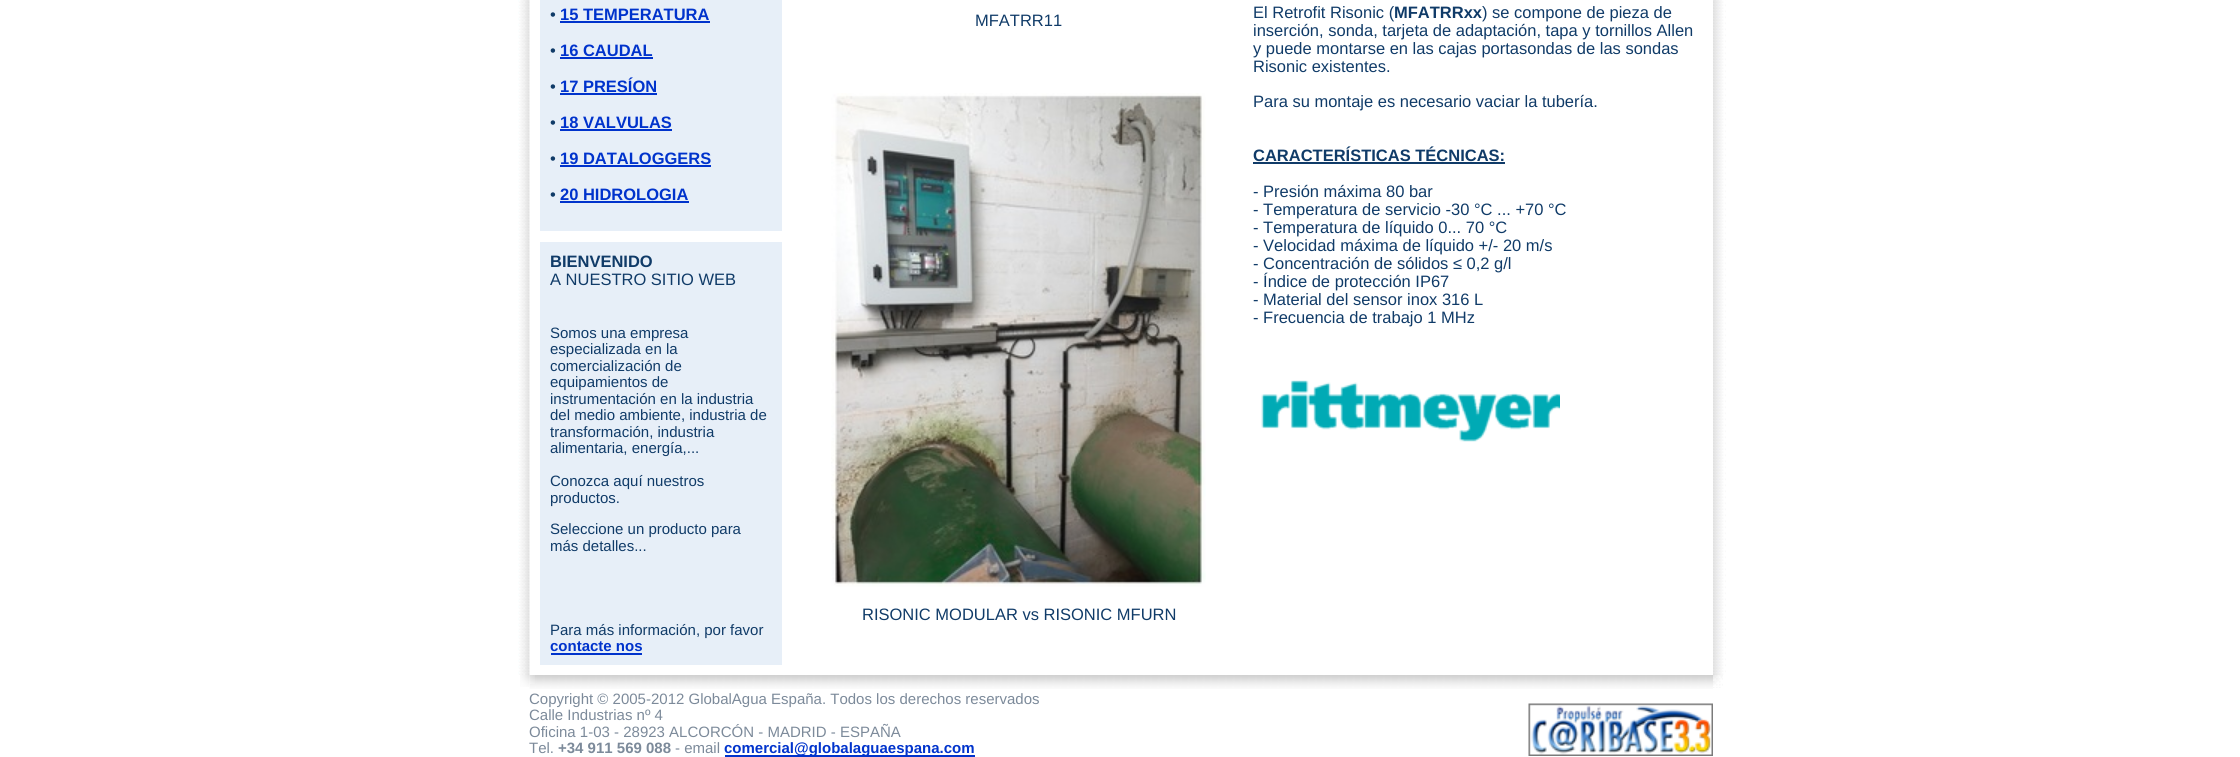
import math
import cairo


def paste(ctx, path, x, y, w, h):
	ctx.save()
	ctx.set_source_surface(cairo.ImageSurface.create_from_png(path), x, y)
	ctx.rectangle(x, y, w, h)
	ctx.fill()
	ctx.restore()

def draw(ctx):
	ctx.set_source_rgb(1, 1, 1)
	ctx.paint()
	paste(ctx, 'media/1.png', 518, 0, 12, 675)
	ctx.set_source_rgb(0.906, 0.937, 0.969)
	ctx.rectangle(540, 0, 242, 665)
	ctx.fill()
	ctx.select_font_face('Liberation Sans')
	ctx.set_font_size(16.5)
	ctx.set_source_rgb(0.063, 0.231, 0.408)
	ctx.move_to(550, 20)
	ctx.show_text('•')
	ctx.select_font_face('Liberation Sans', cairo.FONT_SLANT_NORMAL, cairo.FONT_WEIGHT_BOLD)
	ctx.set_source_rgb(0, 0.2, 0.8)
	ctx.move_to(560, 20)
	ctx.show_text('15 TEMPERATURA')
	ctx.rectangle(560, 21, 150, 2)
	ctx.fill()
	ctx.select_font_face('Liberation Sans')
	ctx.set_source_rgb(0.063, 0.231, 0.408)
	ctx.move_to(550, 56)
	ctx.show_text('•')
	ctx.select_font_face('Liberation Sans', cairo.FONT_SLANT_NORMAL, cairo.FONT_WEIGHT_BOLD)
	ctx.set_source_rgb(0, 0.2, 0.8)
	ctx.move_to(560, 56)
	ctx.show_text('16 CAUDAL')
	ctx.rectangle(560, 57, 93, 2)
	ctx.fill()
	ctx.select_font_face('Liberation Sans')
	ctx.set_source_rgb(0.063, 0.231, 0.408)
	ctx.move_to(550, 92)
	ctx.show_text('•')
	ctx.select_font_face('Liberation Sans', cairo.FONT_SLANT_NORMAL, cairo.FONT_WEIGHT_BOLD)
	ctx.set_source_rgb(0, 0.2, 0.8)
	ctx.move_to(560, 92)
	ctx.show_text('17 PRESÍON')
	ctx.rectangle(560, 93, 97, 2)
	ctx.fill()
	ctx.select_font_face('Liberation Sans')
	ctx.set_source_rgb(0.063, 0.231, 0.408)
	ctx.move_to(550, 128)
	ctx.show_text('•')
	ctx.select_font_face('Liberation Sans', cairo.FONT_SLANT_NORMAL, cairo.FONT_WEIGHT_BOLD)
	ctx.set_source_rgb(0, 0.2, 0.8)
	ctx.move_to(560, 128)
	ctx.show_text('18 VALVULAS')
	ctx.rectangle(560, 129, 112, 2)
	ctx.fill()
	ctx.select_font_face('Liberation Sans')
	ctx.set_source_rgb(0.063, 0.231, 0.408)
	ctx.move_to(550, 164)
	ctx.show_text('•')
	ctx.select_font_face('Liberation Sans', cairo.FONT_SLANT_NORMAL, cairo.FONT_WEIGHT_BOLD)
	ctx.set_source_rgb(0, 0.2, 0.8)
	ctx.move_to(560, 164)
	ctx.show_text('19 DATALOGGERS')
	ctx.rectangle(560, 165, 151, 2)
	ctx.fill()
	ctx.select_font_face('Liberation Sans')
	ctx.set_source_rgb(0.063, 0.231, 0.408)
	ctx.move_to(550, 200)
	ctx.show_text('•')
	ctx.select_font_face('Liberation Sans', cairo.FONT_SLANT_NORMAL, cairo.FONT_WEIGHT_BOLD)
	ctx.set_source_rgb(0, 0.2, 0.8)
	ctx.move_to(560, 200)
	ctx.show_text('20 HIDROLOGIA')
	ctx.rectangle(560, 201, 129, 2)
	ctx.fill()
	ctx.set_source_rgb(1, 1, 1)
	ctx.rectangle(540, 231, 242, 11)
	ctx.fill()
	ctx.set_source_rgb(0.063, 0.231, 0.408)
	ctx.move_to(550, 267)
	ctx.show_text('BIENVENIDO')
	ctx.select_font_face('Liberation Sans')
	ctx.move_to(550, 285)
	ctx.show_text('A NUESTRO SITIO WEB')
	ctx.set_font_size(15)
	for x, y, s in [
		(550, 338, 'Somos una empresa'),
		(550, 354, 'especializada en la'),
		(550, 371, 'comercialización de'),
		(550, 387, 'equipamientos de'),
		(550, 404, 'instrumentación en la industria'),
		(550, 420, 'del medio ambiente, industria de'),
		(550, 437, 'transformación, industria'),
		(550, 453, 'alimentaria, energía,...'),
		(550, 486, 'Conozca aquí nuestros'),
		(550, 503, 'productos.'),
		(550, 534, 'Seleccione un producto para'),
		(550, 551, 'más detalles...'),
		(550, 635, 'Para más información, por favor'),
	]:
		ctx.move_to(x, y)
		ctx.show_text(s)
	ctx.select_font_face('Liberation Sans', cairo.FONT_SLANT_NORMAL, cairo.FONT_WEIGHT_BOLD)
	ctx.set_source_rgb(0, 0.2, 0.8)
	ctx.move_to(550, 651)
	ctx.show_text('contacte nos')
	ctx.rectangle(551, 653, 91, 2)
	ctx.fill()
	ctx.select_font_face('Liberation Sans')
	ctx.set_font_size(16.5)
	ctx.set_source_rgb(0.063, 0.231, 0.408)
	ctx.move_to(975, 26)
	ctx.show_text('MFATRR11')
	paste(ctx, 'media/2.png', 831, 93, 375, 494)
	ctx.move_to(862, 620)
	ctx.show_text('RISONIC MODULAR vs RISONIC MFURN')
	ctx.move_to(1253, 18)
	ctx.show_text('El Retrofit Risonic (')
	ctx.select_font_face('Liberation Sans', cairo.FONT_SLANT_NORMAL, cairo.FONT_WEIGHT_BOLD)
	ctx.move_to(1394, 18)
	ctx.show_text('MFATRRxx')
	ctx.select_font_face('Liberation Sans')
	for x, y, s in [
		(1482, 18, ') se compone de pieza de'),
		(1253, 36, 'inserción, sonda, tarjeta de adaptación, tapa y tornillos Allen'),
		(1253, 54, 'y puede montarse en las cajas portasondas de las sondas'),
		(1253, 72, 'Risonic existentes.'),
		(1253, 107, 'Para su montaje es necesario vaciar la tubería.'),
	]:
		ctx.move_to(x, y)
		ctx.show_text(s)
	ctx.select_font_face('Liberation Sans', cairo.FONT_SLANT_NORMAL, cairo.FONT_WEIGHT_BOLD)
	ctx.move_to(1253, 161)
	ctx.show_text('CARACTERÍSTICAS TÉCNICAS:')
	ctx.rectangle(1253, 162, 252, 2)
	ctx.fill()
	ctx.select_font_face('Liberation Sans')
	for x, y, s in [
		(1253, 197, '- Presión máxima 80 bar'),
		(1253, 215, '- Temperatura de servicio -30 °C ... +70 °C'),
		(1253, 233, '- Temperatura de líquido 0... 70 °C'),
		(1253, 251, '- Velocidad máxima de líquido +/- 20 m/s'),
		(1253, 269, '- Concentración de sólidos ≤ 0,2 g/l'),
		(1253, 287, '- Índice de protección IP67'),
		(1253, 305, '- Material del sensor inox 316 L'),
		(1253, 323, '- Frecuencia de trabajo 1 MHz'),
	]:
		ctx.move_to(x, y)
		ctx.show_text(s)
	paste(ctx, 'media/3.png', 1261, 380, 299, 62)
	paste(ctx, 'media/4.png', 1713, 0, 13, 675)
	paste(ctx, 'media/5.png', 520, 675, 9, 12)
	paste(ctx, 'media/6.png', 529, 675, 1184, 14)
	paste(ctx, 'media/7.png', 530, 675, 5, 9)
	paste(ctx, 'media/8.png', 1713, 675, 10, 13)
	ctx.set_font_size(15)
	ctx.set_source_rgb(0.486, 0.541, 0.604)
	for x, y, s in [
		(529, 704, 'Copyright © 2005-2012 GlobalAgua España. Todos los derechos reservados'),
		(529, 720, 'Calle Industrias nº 4'),
		(529, 737, 'Oficina 1-03 - 28923 ALCORCÓN - MADRID - ESPAÑA'),
		(529, 753, 'Tel.'),
	]:
		ctx.move_to(x, y)
		ctx.show_text(s)
	ctx.select_font_face('Liberation Sans', cairo.FONT_SLANT_NORMAL, cairo.FONT_WEIGHT_BOLD)
	ctx.move_to(558, 753)
	ctx.show_text('+34 911 569 088')
	ctx.select_font_face('Liberation Sans')
	ctx.move_to(675, 753)
	ctx.show_text('- email')
	ctx.set_source_rgb(0, 0.2, 0.8)
	ctx.rectangle(725, 755, 250, 2)
	ctx.fill()
	ctx.select_font_face('Liberation Sans', cairo.FONT_SLANT_NORMAL, cairo.FONT_WEIGHT_BOLD)
	ctx.move_to(724, 753)
	ctx.show_text('comercial@globalaguaespana.com')
	paste(ctx, 'media/9.png', 1528, 703, 185, 53)


surface = cairo.ImageSurface(cairo.FORMAT_RGB24, 2240, 757)
ctx = cairo.Context(surface)
options = cairo.FontOptions()
options.set_hint_metrics(cairo.HINT_METRICS_OFF)
options.set_hint_style(cairo.HINT_STYLE_NONE)
ctx.set_font_options(options)
ctx.set_miter_limit(4)
draw(ctx)
surface.write_to_png('image.png')
